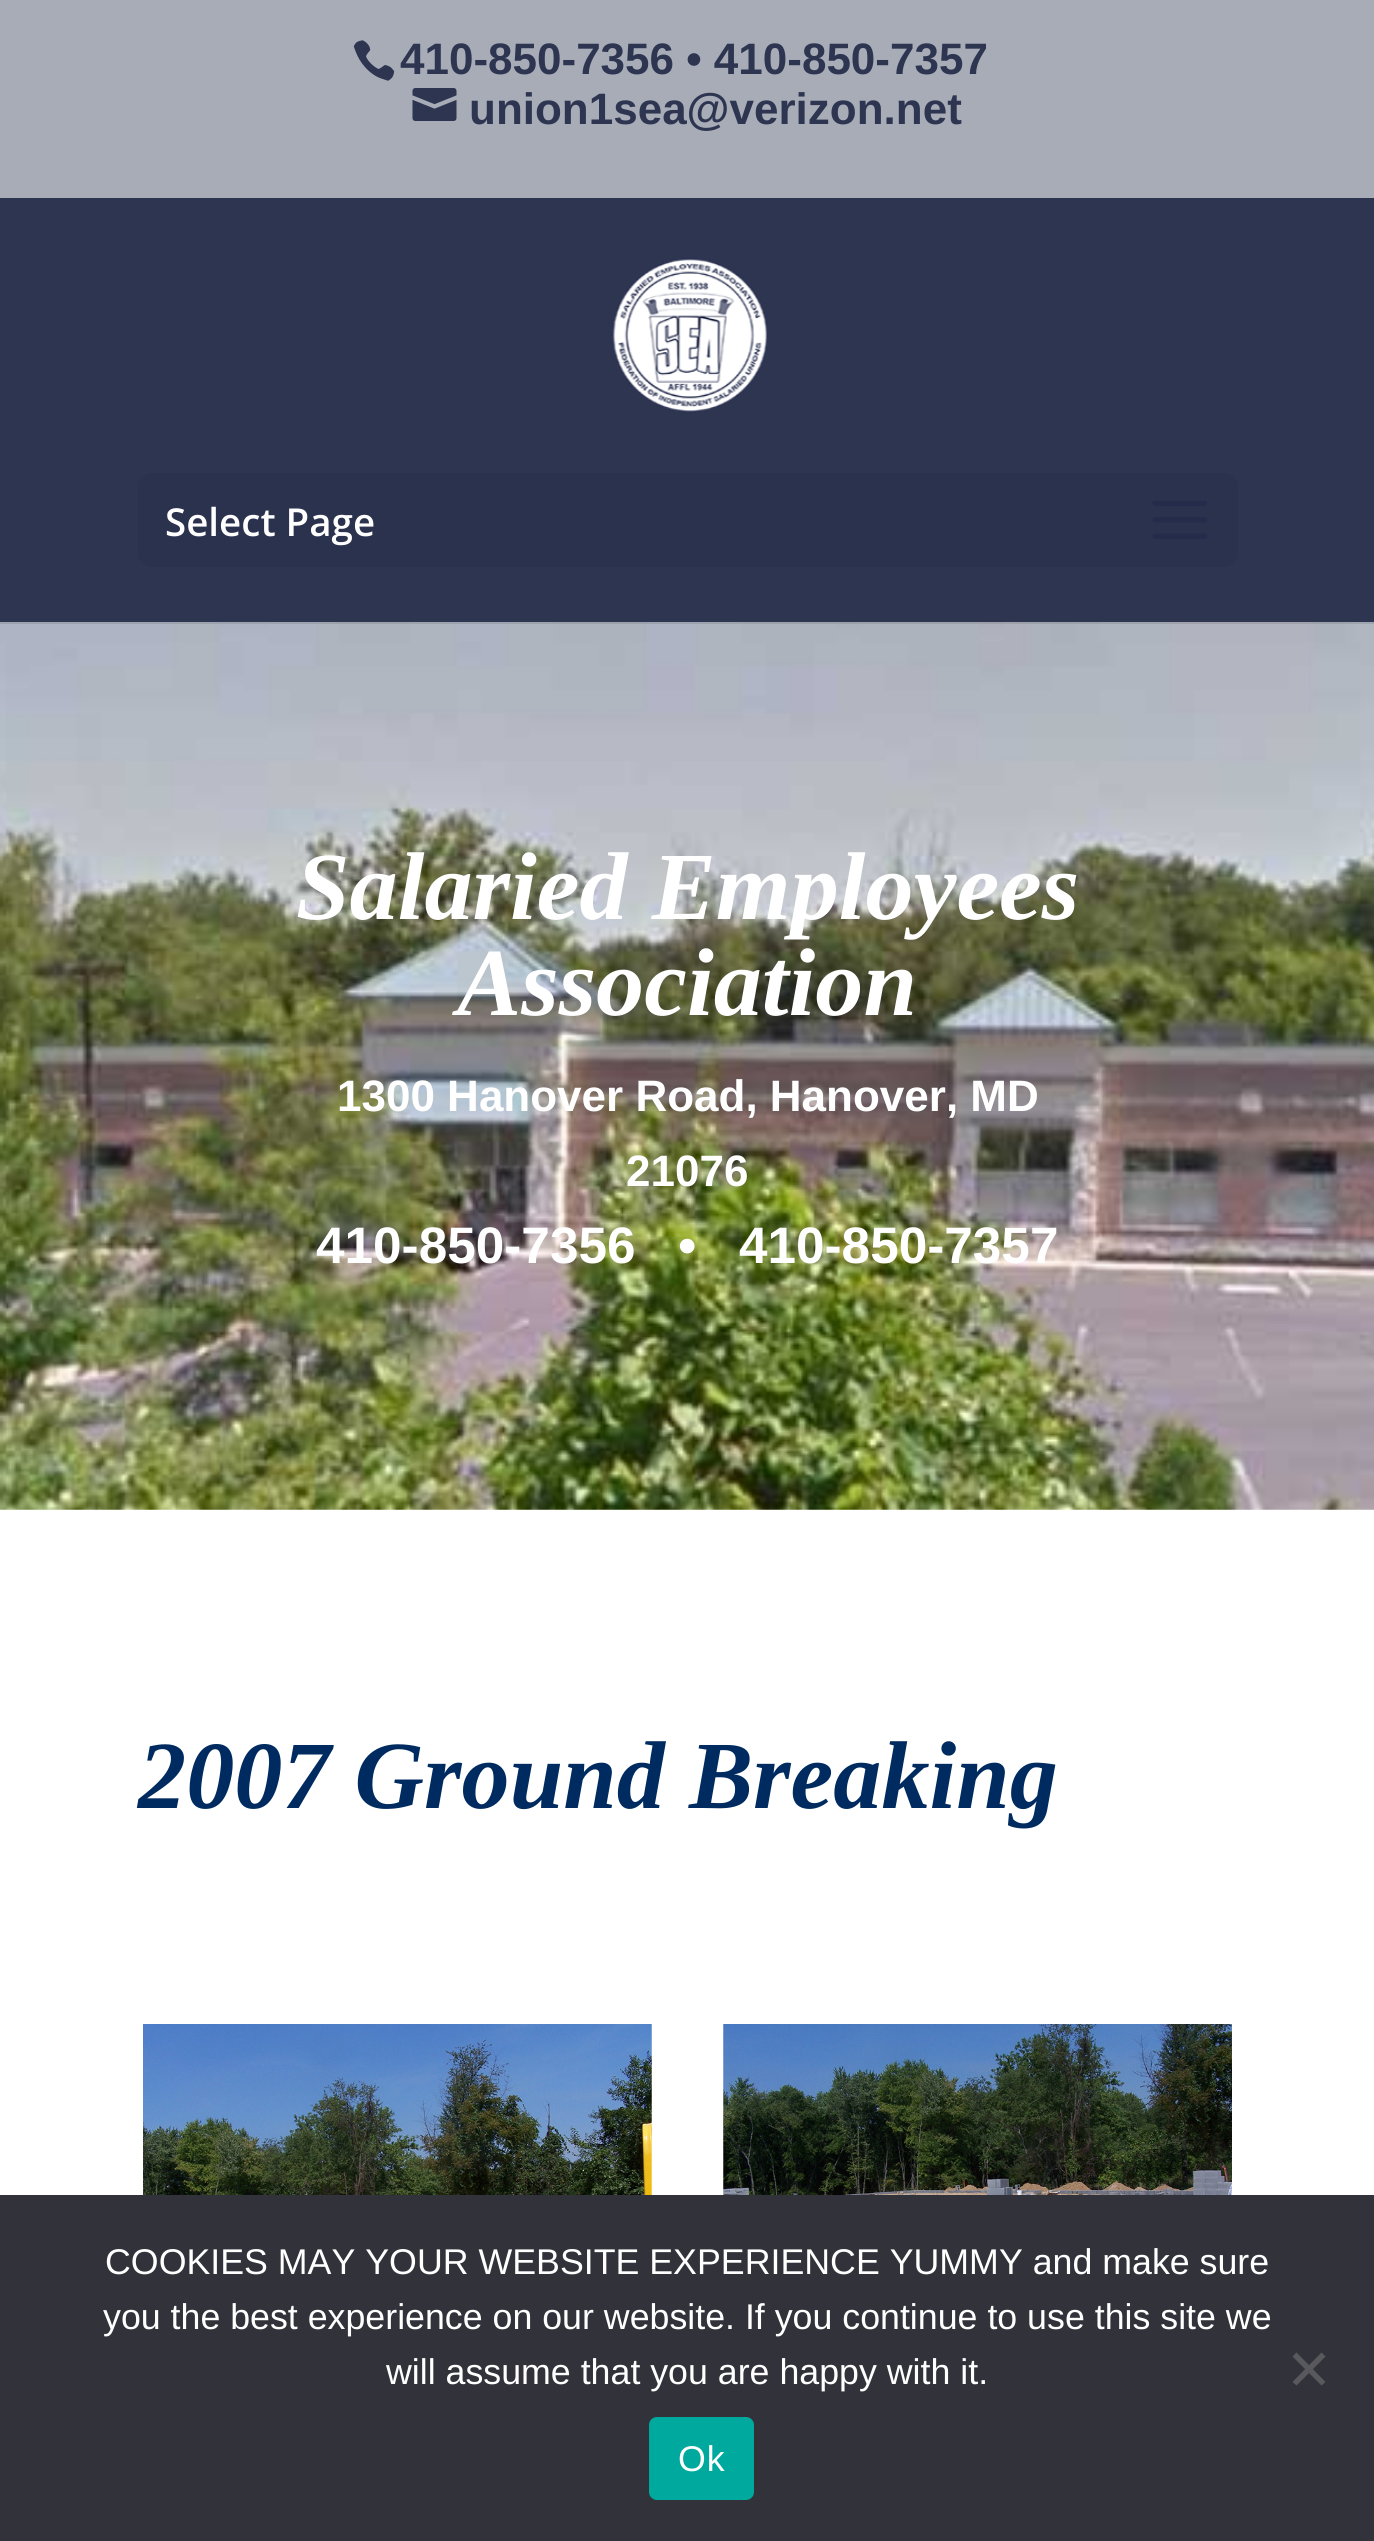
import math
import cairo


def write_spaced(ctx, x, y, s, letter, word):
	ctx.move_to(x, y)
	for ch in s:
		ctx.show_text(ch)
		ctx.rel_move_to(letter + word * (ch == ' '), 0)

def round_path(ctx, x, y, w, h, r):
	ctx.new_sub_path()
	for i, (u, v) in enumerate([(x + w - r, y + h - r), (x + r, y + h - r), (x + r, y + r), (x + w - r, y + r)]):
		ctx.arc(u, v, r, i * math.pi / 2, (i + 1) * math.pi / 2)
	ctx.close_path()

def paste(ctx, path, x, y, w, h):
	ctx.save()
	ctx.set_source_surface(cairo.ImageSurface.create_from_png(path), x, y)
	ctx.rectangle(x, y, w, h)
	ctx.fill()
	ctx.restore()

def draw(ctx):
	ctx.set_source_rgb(1, 1, 1)
	ctx.paint()
	ctx.set_source_rgb(0.659, 0.675, 0.718)
	ctx.rectangle(0, 0, 1374, 198)
	ctx.fill()
	paste(ctx, 'media/1.png', 353, 40, 42, 41)
	ctx.select_font_face('Liberation Sans', cairo.FONT_SLANT_NORMAL, cairo.FONT_WEIGHT_BOLD)
	ctx.set_font_size(44)
	ctx.set_source_rgb(0.176, 0.208, 0.318)
	ctx.move_to(400, 74)
	ctx.show_text('410-850-7356 • 410-850-7357')
	paste(ctx, 'media/2.png', 412, 88, 45, 33)
	ctx.move_to(469, 124)
	ctx.show_text('union1sea@verizon.net')
	paste(ctx, 'media/5.png', 0, 622, 1374, 888)
	ctx.set_source_rgba(0, 0, 0, 0.1)
	ctx.rectangle(0, 622, 1374, 2)
	ctx.fill()
	ctx.set_source_rgb(0.176, 0.208, 0.318)
	ctx.rectangle(0, 198, 1374, 424)
	ctx.fill()
	paste(ctx, 'media/3.png', 612, 258, 155, 155)
	ctx.set_source_rgb(0.169, 0.196, 0.302)
	round_path(ctx, 138, 473, 1100, 94, 14)
	ctx.fill()
	ctx.select_font_face('Open Sans SemiBold')
	ctx.set_font_size(38.5)
	ctx.set_source_rgb(1, 1, 1)
	ctx.move_to(165, 536)
	ctx.show_text('Select Page')
	paste(ctx, 'media/4.png', 1152, 501, 55, 38)
	ctx.select_font_face('Liberation Serif', cairo.FONT_SLANT_ITALIC, cairo.FONT_WEIGHT_BOLD)
	ctx.set_font_size(96.25)
	ctx.move_to(296, 919)
	ctx.show_text('Salaried Employees')
	ctx.move_to(457, 1015)
	ctx.show_text('Association')
	ctx.select_font_face('Liberation Sans', cairo.FONT_SLANT_NORMAL, cairo.FONT_WEIGHT_BOLD)
	ctx.set_font_size(44)
	ctx.move_to(337, 1111)
	ctx.show_text('1300 Hanover Road, Hanover, MD')
	ctx.move_to(626, 1186)
	ctx.show_text('21076')
	ctx.set_font_size(51.3)
	ctx.move_to(316, 1263)
	ctx.show_text('410-850-7356   •   410-850-7357')
	ctx.select_font_face('Liberation Serif', cairo.FONT_SLANT_ITALIC, cairo.FONT_WEIGHT_BOLD)
	ctx.set_font_size(96.25)
	ctx.set_source_rgb(0, 0.169, 0.376)
	ctx.move_to(138, 1808)
	ctx.show_text('2007 Ground Breaking')
	paste(ctx, 'media/6.png', 143, 2024, 509, 171)
	paste(ctx, 'media/7.png', 723, 2024, 509, 171)
	ctx.set_source_rgb(0.196, 0.196, 0.227)
	ctx.rectangle(0, 2195, 1374, 346)
	ctx.fill()
	ctx.select_font_face('Liberation Sans')
	ctx.set_font_size(35.75)
	ctx.set_source_rgb(1, 1, 1)
	for x, y, s in [
		(105, 2274, 'COOKIES MAY YOUR WEBSITE EXPERIENCE YUMMY and make sure'),
		(103, 2329, 'you the best experience on our website. If you continue to use this site we'),
		(386, 2384, 'will assume that you are happy with it.'),
	]:
		ctx.move_to(x, y)
		ctx.show_text(s)
	ctx.set_source_rgb(0.349, 0.349, 0.365)
	ctx.new_path()
	ctx.move_to(1321.5, 2352.5)
	ctx.line_to(1325.5, 2356.5)
	ctx.line_to(1296.5, 2385.5)
	ctx.line_to(1292.5, 2382)
	ctx.close_path()
	ctx.fill()
	ctx.new_path()
	ctx.move_to(1292.5, 2356.5)
	ctx.line_to(1296.5, 2352.5)
	ctx.line_to(1325.5, 2382)
	ctx.line_to(1321.5, 2385.5)
	ctx.close_path()
	ctx.fill()
	ctx.set_source_rgb(0, 0.663, 0.616)
	round_path(ctx, 649, 2417, 105, 83, 8)
	ctx.fill()
	ctx.set_source_rgb(1, 1, 1)
	write_spaced(ctx, 678, 2471, 'Ok', 1, 0)


surface = cairo.ImageSurface(cairo.FORMAT_RGB24, 1374, 2541)
ctx = cairo.Context(surface)
options = cairo.FontOptions()
options.set_hint_metrics(cairo.HINT_METRICS_OFF)
options.set_hint_style(cairo.HINT_STYLE_NONE)
ctx.set_font_options(options)
ctx.set_miter_limit(4)
draw(ctx)
surface.write_to_png('image.png')
